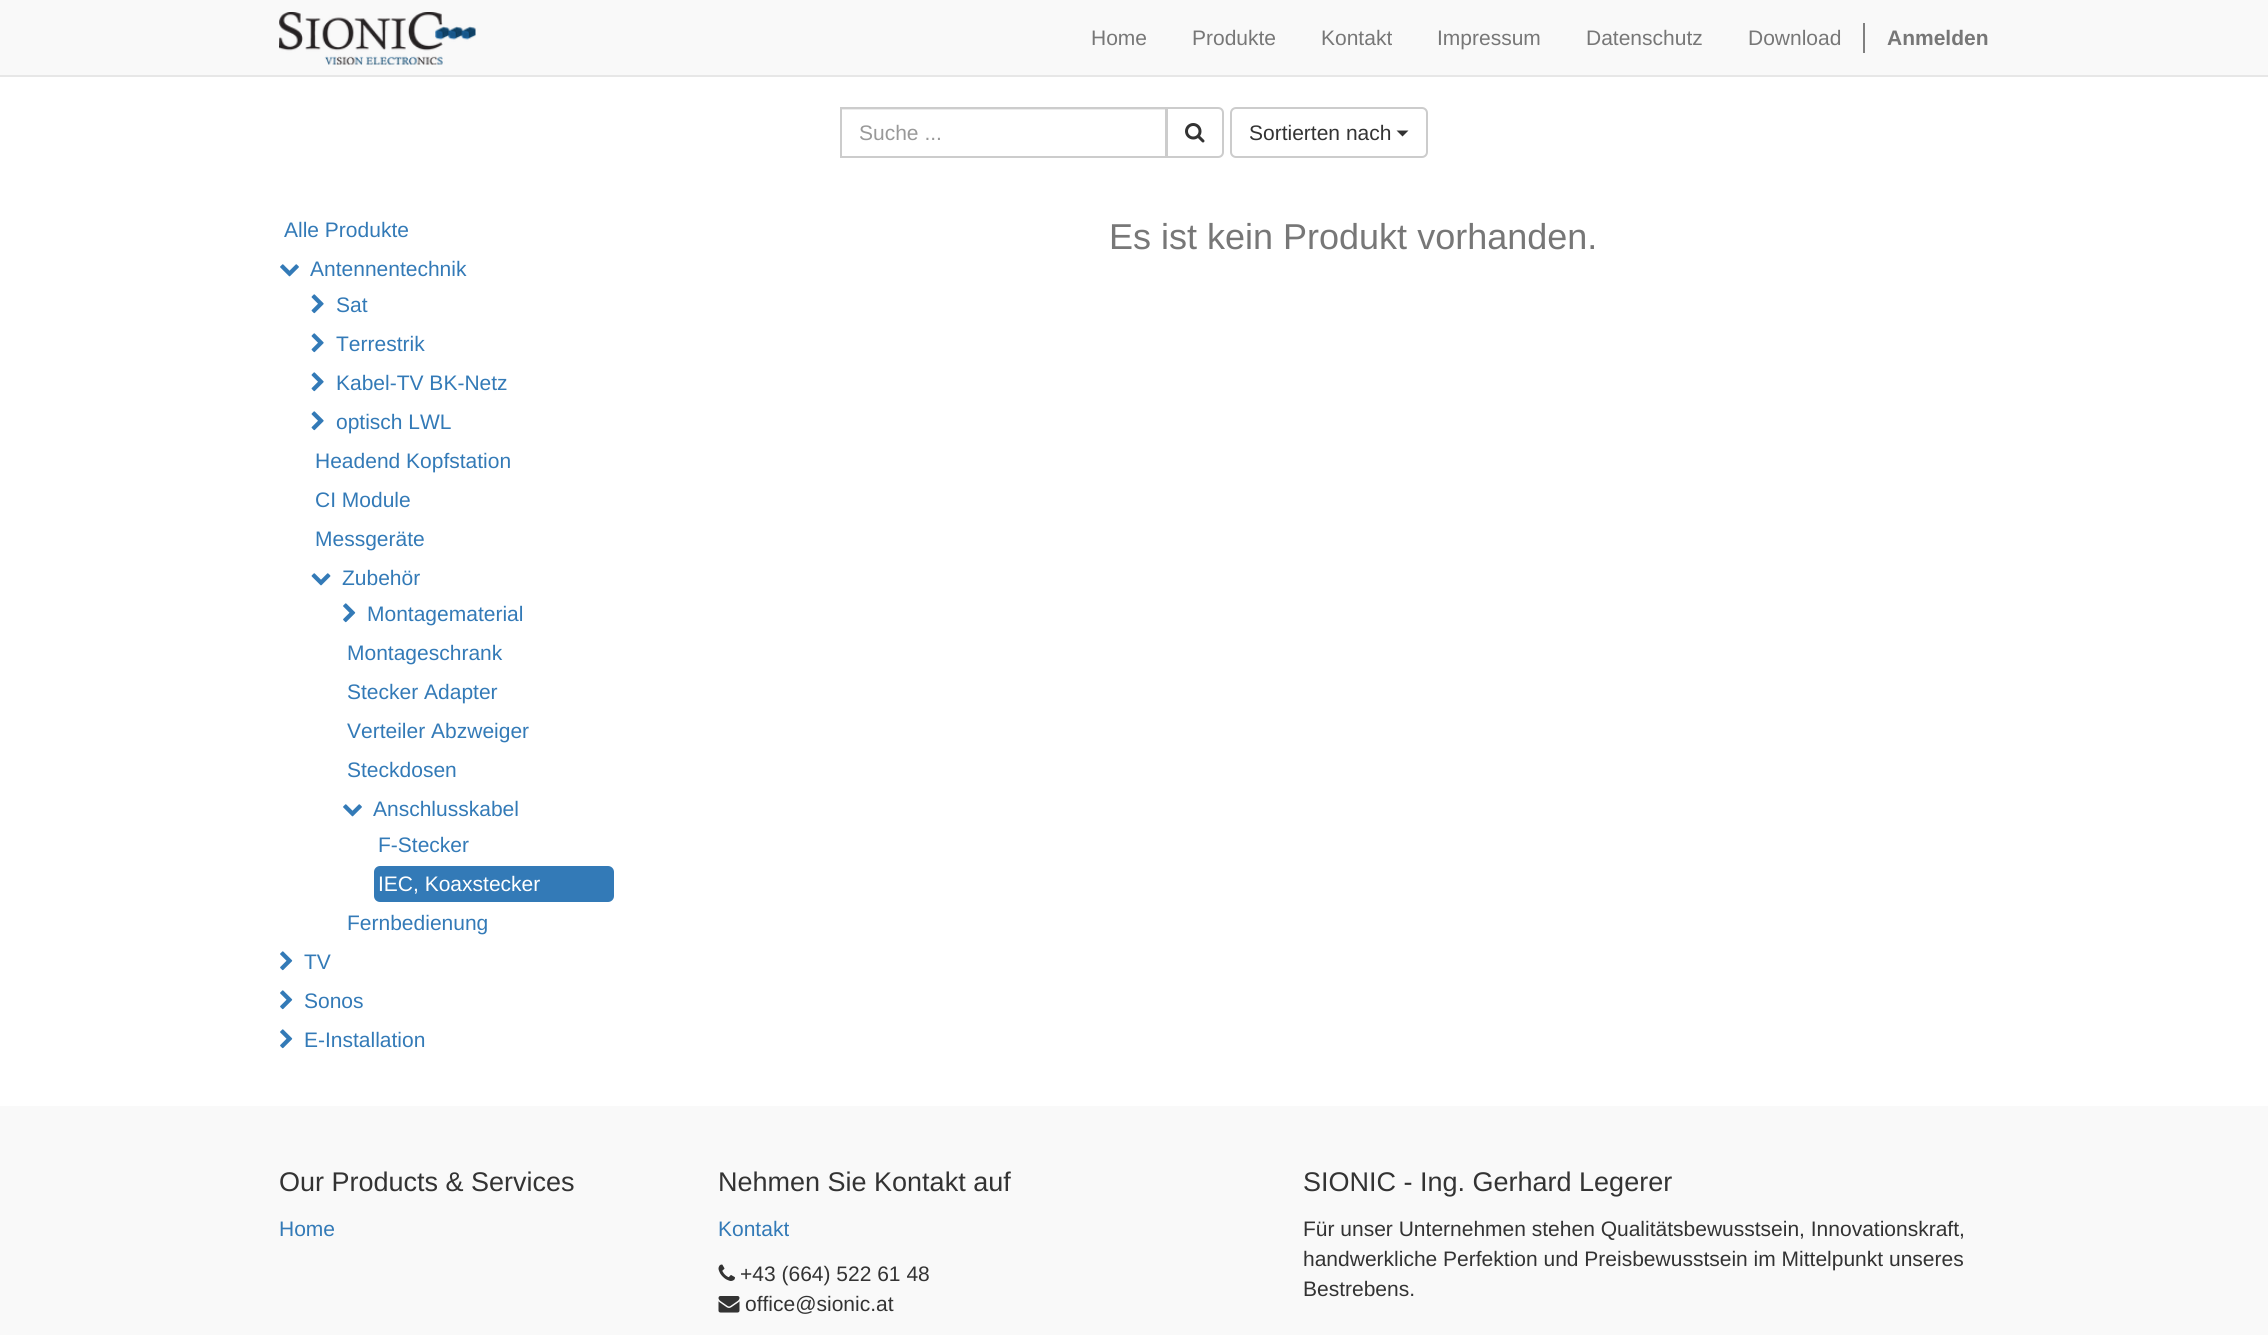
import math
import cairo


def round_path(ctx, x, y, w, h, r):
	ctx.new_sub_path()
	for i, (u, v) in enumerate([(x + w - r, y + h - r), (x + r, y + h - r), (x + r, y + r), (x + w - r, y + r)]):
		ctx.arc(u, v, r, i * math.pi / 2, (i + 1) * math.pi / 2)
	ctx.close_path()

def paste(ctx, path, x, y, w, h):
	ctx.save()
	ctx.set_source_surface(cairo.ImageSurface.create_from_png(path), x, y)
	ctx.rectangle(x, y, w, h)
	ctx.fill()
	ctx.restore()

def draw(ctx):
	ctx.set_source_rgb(1, 1, 1)
	ctx.paint()
	ctx.set_source_rgb(0.973, 0.973, 0.973)
	ctx.rectangle(0, 0, 2268, 75)
	ctx.fill()
	ctx.set_source_rgb(0.906, 0.906, 0.906)
	ctx.rectangle(0, 75, 2268, 2)
	ctx.fill()
	paste(ctx, 'media/1.png', 279, 12, 197, 53)
	ctx.select_font_face('Liberation Sans')
	ctx.set_font_size(21)
	ctx.set_source_rgb(0.467, 0.467, 0.467)
	for x, y, s in [
		(1091, 45, 'Home'),
		(1192, 45, 'Produkte'),
		(1321, 45, 'Kontakt'),
		(1437, 45, 'Impressum'),
		(1586, 45, 'Datenschutz'),
		(1748, 45, 'Download'),
	]:
		ctx.move_to(x, y)
		ctx.show_text(s)
	ctx.set_source_rgb(0.502, 0.502, 0.502)
	ctx.rectangle(1863, 23, 2, 30)
	ctx.fill()
	ctx.select_font_face('Liberation Sans', cairo.FONT_SLANT_NORMAL, cairo.FONT_WEIGHT_BOLD)
	ctx.set_source_rgb(0.467, 0.467, 0.467)
	ctx.move_to(1887, 45)
	ctx.show_text('Anmelden')
	ctx.set_source_rgb(0.925, 0.925, 0.925)
	ctx.rectangle(842, 109, 324, 1)
	ctx.fill()
	ctx.rectangle(841, 108, 325, 49)
	ctx.set_source_rgb(0.8, 0.8, 0.8)
	ctx.stroke()
	ctx.select_font_face('Liberation Sans')
	ctx.set_source_rgb(0.6, 0.6, 0.6)
	ctx.move_to(859, 140)
	ctx.show_text('Suche ...')
	ctx.set_source_rgb(1, 1, 1)
	ctx.new_path()
	ctx.move_to(1167, 108)
	ctx.line_to(1218, 108)
	ctx.curve_to(1221, 108, 1223, 110, 1223, 113)
	ctx.line_to(1223, 152)
	ctx.curve_to(1223, 155, 1221, 157, 1218, 157)
	ctx.line_to(1167, 157)
	ctx.close_path()
	ctx.fill_preserve()
	ctx.set_source_rgb(0.8, 0.8, 0.8)
	ctx.stroke()
	paste(ctx, 'media/2.png', 1185, 123, 20, 20)
	round_path(ctx, 1231, 108, 196, 49, 5)
	ctx.stroke()
	ctx.set_source_rgb(0.2, 0.2, 0.2)
	ctx.move_to(1249, 140)
	ctx.show_text('Sortierten nach')
	ctx.new_path()
	ctx.move_to(1396.5, 130.5)
	ctx.line_to(1408.5, 130.5)
	ctx.line_to(1402.5, 136.5)
	ctx.close_path()
	ctx.fill()
	ctx.set_source_rgb(0.2, 0.478, 0.718)
	ctx.move_to(284, 237)
	ctx.show_text('Alle Produkte')
	paste(ctx, 'media/3.png', 280, 264, 19, 13)
	ctx.move_to(310, 276)
	ctx.show_text('Antennentechnik')
	paste(ctx, 'media/4.png', 311, 294, 13, 20)
	ctx.move_to(336, 312)
	ctx.show_text('Sat')
	paste(ctx, 'media/4.png', 311, 333, 13, 20)
	ctx.move_to(336, 351)
	ctx.show_text('Terrestrik')
	paste(ctx, 'media/4.png', 311, 372, 13, 20)
	ctx.move_to(336, 390)
	ctx.show_text('Kabel-TV BK-Netz')
	paste(ctx, 'media/4.png', 311, 411, 13, 20)
	for x, y, s in [
		(336, 429, 'optisch LWL'),
		(315, 468, 'Headend Kopfstation'),
		(315, 507, 'CI Module'),
		(315, 546, 'Messgeräte'),
	]:
		ctx.move_to(x, y)
		ctx.show_text(s)
	paste(ctx, 'media/5.png', 311, 573, 20, 13)
	ctx.move_to(342, 585)
	ctx.show_text('Zubehör')
	paste(ctx, 'media/6.png', 343, 603, 13, 20)
	for x, y, s in [
		(367, 621, 'Montagematerial'),
		(347, 660, 'Montageschrank'),
		(347, 699, 'Stecker Adapter'),
		(347, 738, 'Verteiler Abzweiger'),
		(347, 777, 'Steckdosen'),
	]:
		ctx.move_to(x, y)
		ctx.show_text(s)
	paste(ctx, 'media/3.png', 343, 804, 19, 13)
	ctx.move_to(373, 816)
	ctx.show_text('Anschlusskabel')
	ctx.move_to(378, 852)
	ctx.show_text('F-Stecker')
	round_path(ctx, 374, 866, 240, 36, 6)
	ctx.fill()
	ctx.set_source_rgb(1, 1, 1)
	ctx.move_to(378, 891)
	ctx.show_text('IEC, Koaxstecker')
	ctx.set_source_rgb(0.2, 0.478, 0.718)
	ctx.move_to(347, 930)
	ctx.show_text('Fernbedienung')
	paste(ctx, 'media/6.png', 280, 951, 13, 20)
	ctx.move_to(304, 969)
	ctx.show_text('TV')
	paste(ctx, 'media/6.png', 280, 990, 13, 20)
	ctx.move_to(304, 1008)
	ctx.show_text('Sonos')
	paste(ctx, 'media/6.png', 280, 1029, 13, 20)
	ctx.move_to(304, 1047)
	ctx.show_text('E-Installation')
	ctx.set_font_size(36)
	ctx.set_source_rgb(0.467, 0.467, 0.467)
	ctx.move_to(1109, 249)
	ctx.show_text('Es ist kein Produkt vorhanden.')
	ctx.set_source_rgb(0.973, 0.973, 0.973)
	ctx.rectangle(0, 1106, 2268, 229)
	ctx.fill()
	ctx.set_font_size(27)
	ctx.set_source_rgb(0.2, 0.2, 0.2)
	ctx.move_to(279, 1191)
	ctx.show_text('Our Products & Services')
	ctx.set_font_size(21)
	ctx.set_source_rgb(0.2, 0.478, 0.718)
	ctx.move_to(279, 1236)
	ctx.show_text('Home')
	ctx.set_font_size(27)
	ctx.set_source_rgb(0.2, 0.2, 0.2)
	ctx.move_to(718, 1191)
	ctx.show_text('Nehmen Sie Kontakt auf')
	ctx.set_font_size(21)
	ctx.set_source_rgb(0.2, 0.478, 0.718)
	ctx.move_to(718, 1236)
	ctx.show_text('Kontakt')
	paste(ctx, 'media/7.png', 718, 1264, 17, 17)
	ctx.set_source_rgb(0.2, 0.2, 0.2)
	ctx.move_to(740, 1281)
	ctx.show_text('+43 (664) 522 61 48')
	paste(ctx, 'media/8.png', 718, 1296, 22, 17)
	ctx.move_to(745, 1311)
	ctx.show_text('office@sionic.at')
	ctx.set_font_size(27)
	ctx.move_to(1303, 1191)
	ctx.show_text('SIONIC - Ing. Gerhard Legerer')
	ctx.set_font_size(21)
	for x, y, s in [
		(1303, 1236, 'Für unser Unternehmen stehen Qualitätsbewusstsein, Innovationskraft,'),
		(1303, 1266, 'handwerkliche Perfektion und Preisbewusstsein im Mittelpunkt unseres'),
		(1303, 1296, 'Bestrebens.'),
	]:
		ctx.move_to(x, y)
		ctx.show_text(s)


surface = cairo.ImageSurface(cairo.FORMAT_RGB24, 2268, 1335)
ctx = cairo.Context(surface)
options = cairo.FontOptions()
options.set_hint_metrics(cairo.HINT_METRICS_OFF)
options.set_hint_style(cairo.HINT_STYLE_NONE)
ctx.set_font_options(options)
ctx.set_miter_limit(4)
draw(ctx)
surface.write_to_png('image.png')
